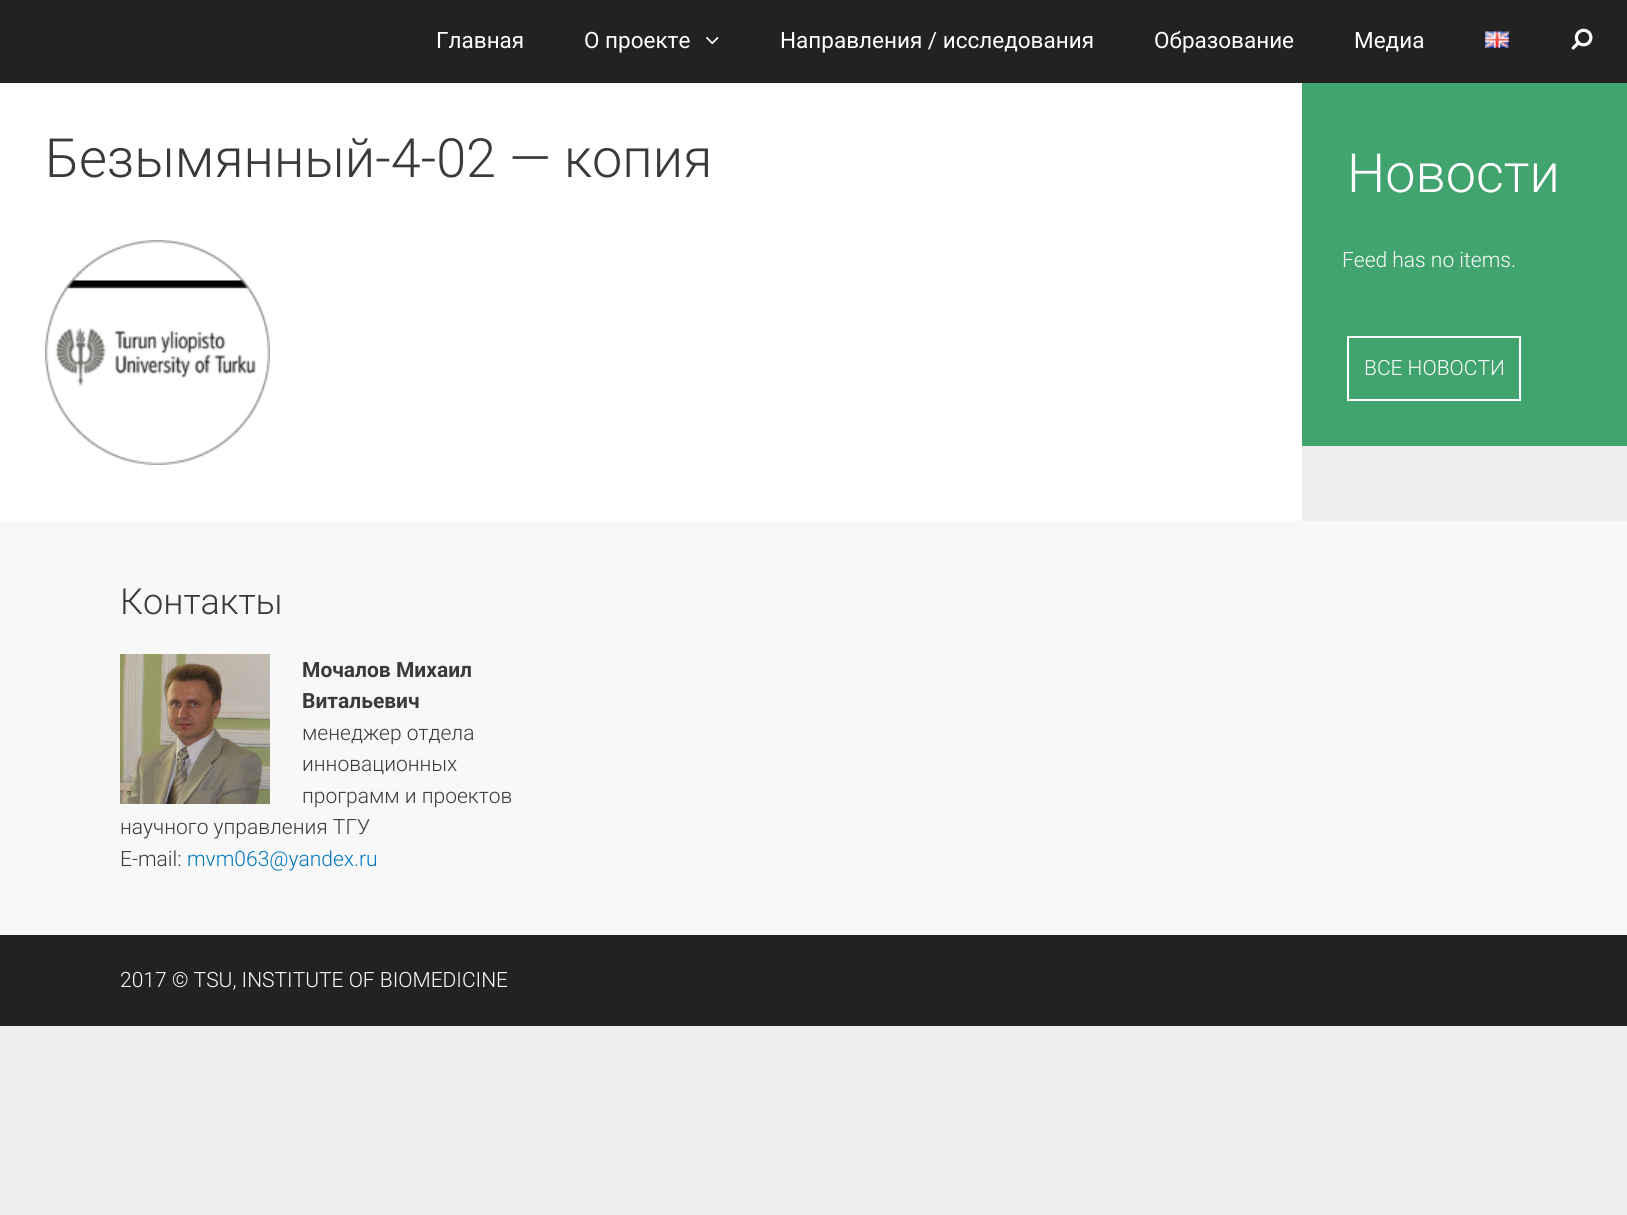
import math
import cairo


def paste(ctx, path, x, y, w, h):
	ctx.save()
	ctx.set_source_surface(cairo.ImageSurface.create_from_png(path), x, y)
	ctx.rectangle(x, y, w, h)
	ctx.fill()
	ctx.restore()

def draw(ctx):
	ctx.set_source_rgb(0.937, 0.937, 0.937)
	ctx.paint()
	ctx.set_source_rgb(0.133, 0.133, 0.133)
	ctx.rectangle(0, 0, 1627, 83)
	ctx.fill()
	ctx.select_font_face('Roboto')
	ctx.set_font_size(22.5)
	ctx.set_source_rgb(1, 1, 1)
	ctx.move_to(436, 48)
	ctx.show_text('Главная')
	ctx.move_to(584, 48)
	ctx.show_text('О проекте')
	paste(ctx, 'media/1.png', 706, 37, 13, 8)
	for x, y, s in [
		(780, 48, 'Направления / исследования'),
		(1154, 48, 'Образование'),
		(1354, 48, 'Медиа'),
	]:
		ctx.move_to(x, y)
		ctx.show_text(s)
	paste(ctx, 'media/2.png', 1485, 31, 24, 17)
	paste(ctx, 'media/3.png', 1571, 28, 22, 22)
	ctx.rectangle(0, 83, 1302, 438)
	ctx.fill()
	ctx.select_font_face('Roboto Light')
	ctx.set_font_size(54)
	ctx.set_source_rgb(0.227, 0.227, 0.227)
	ctx.move_to(45, 177)
	ctx.show_text('Безымянный-4-02 — копия')
	paste(ctx, 'media/4.png', 45, 240, 225, 225)
	ctx.set_source_rgb(0.255, 0.639, 0.431)
	ctx.rectangle(1302, 83, 325, 363)
	ctx.fill()
	ctx.set_source_rgb(1, 1, 1)
	ctx.move_to(1347, 192)
	ctx.show_text('Новости')
	ctx.set_font_size(21)
	ctx.move_to(1342, 267)
	ctx.show_text('Feed has no items.')
	ctx.rectangle(1348, 337, 172, 63)
	ctx.stroke()
	ctx.move_to(1364, 375)
	ctx.show_text('ВСЕ НОВОСТИ')
	ctx.set_source_rgb(0.969, 0.969, 0.969)
	ctx.rectangle(0, 521, 1627, 414)
	ctx.fill()
	ctx.set_font_size(36)
	ctx.set_source_rgb(0.227, 0.227, 0.227)
	ctx.move_to(120, 614)
	ctx.show_text('Контакты')
	paste(ctx, 'media/5.png', 120, 654, 150, 150)
	ctx.select_font_face('Roboto', cairo.FONT_SLANT_NORMAL, cairo.FONT_WEIGHT_BOLD)
	ctx.set_font_size(21)
	ctx.move_to(302, 677)
	ctx.show_text('Мочалов Михаил')
	ctx.move_to(302, 708)
	ctx.show_text('Витальевич')
	ctx.select_font_face('Roboto Light')
	for x, y, s in [
		(302, 740, 'менеджер отдела'),
		(302, 771, 'инновационных'),
		(302, 803, 'программ и проектов'),
		(120, 834, 'научного управления ТГУ'),
		(120, 866, 'E-mail:'),
	]:
		ctx.move_to(x, y)
		ctx.show_text(s)
	ctx.set_source_rgb(0, 0.467, 0.741)
	ctx.move_to(187, 866)
	ctx.show_text('mvm063@yandex.ru')
	ctx.set_source_rgb(0.133, 0.133, 0.133)
	ctx.rectangle(0, 935, 1627, 91)
	ctx.fill()
	ctx.set_source_rgb(1, 1, 1)
	ctx.move_to(120, 987)
	ctx.show_text('2017 © TSU, INSTITUTE OF BIOMEDICINE')


surface = cairo.ImageSurface(cairo.FORMAT_RGB24, 1627, 1215)
ctx = cairo.Context(surface)
options = cairo.FontOptions()
options.set_hint_metrics(cairo.HINT_METRICS_OFF)
options.set_hint_style(cairo.HINT_STYLE_NONE)
ctx.set_font_options(options)
ctx.set_miter_limit(4)
draw(ctx)
surface.write_to_png('image.png')
